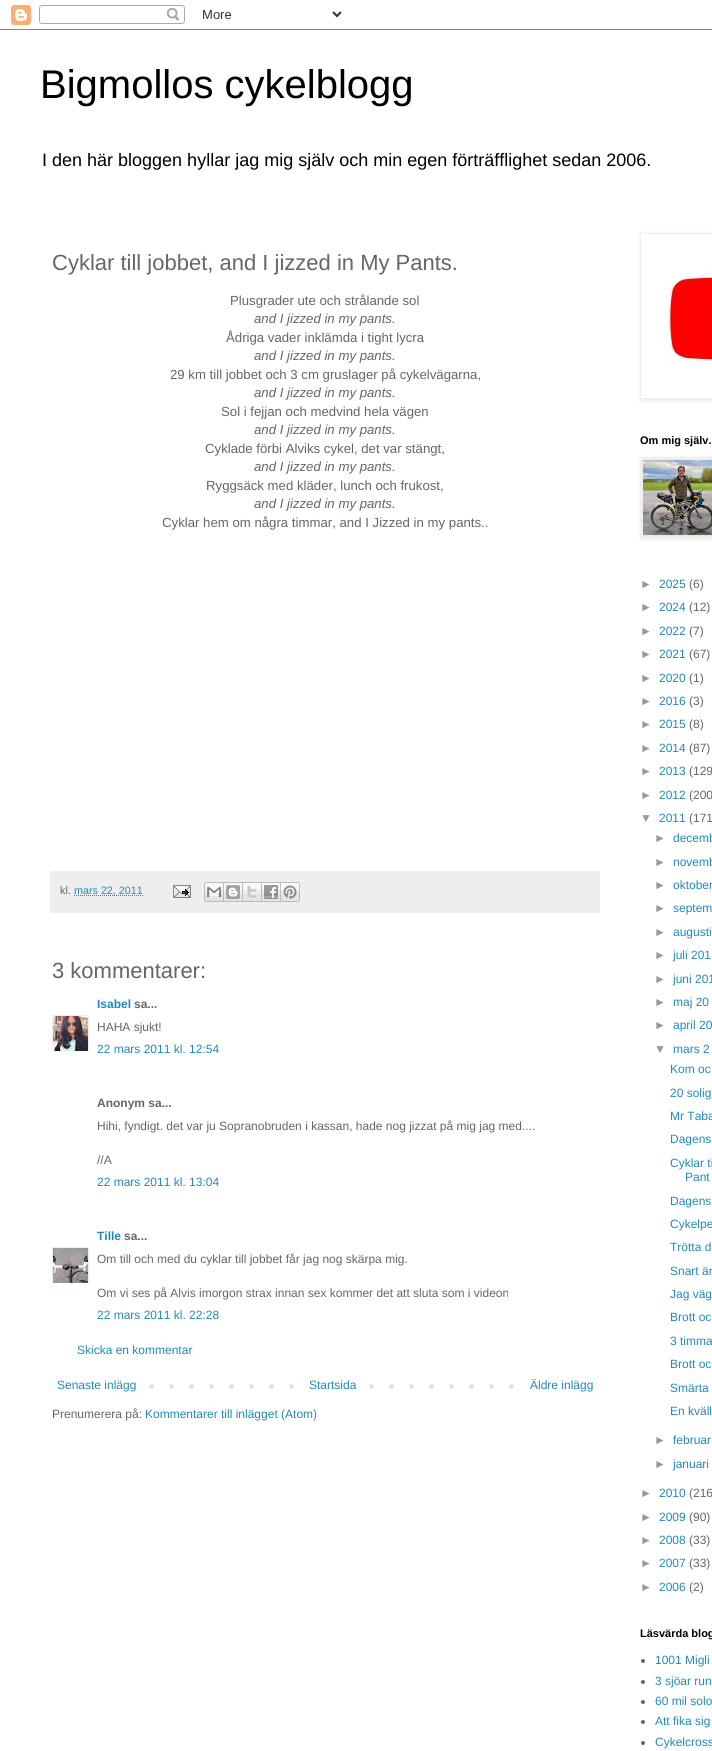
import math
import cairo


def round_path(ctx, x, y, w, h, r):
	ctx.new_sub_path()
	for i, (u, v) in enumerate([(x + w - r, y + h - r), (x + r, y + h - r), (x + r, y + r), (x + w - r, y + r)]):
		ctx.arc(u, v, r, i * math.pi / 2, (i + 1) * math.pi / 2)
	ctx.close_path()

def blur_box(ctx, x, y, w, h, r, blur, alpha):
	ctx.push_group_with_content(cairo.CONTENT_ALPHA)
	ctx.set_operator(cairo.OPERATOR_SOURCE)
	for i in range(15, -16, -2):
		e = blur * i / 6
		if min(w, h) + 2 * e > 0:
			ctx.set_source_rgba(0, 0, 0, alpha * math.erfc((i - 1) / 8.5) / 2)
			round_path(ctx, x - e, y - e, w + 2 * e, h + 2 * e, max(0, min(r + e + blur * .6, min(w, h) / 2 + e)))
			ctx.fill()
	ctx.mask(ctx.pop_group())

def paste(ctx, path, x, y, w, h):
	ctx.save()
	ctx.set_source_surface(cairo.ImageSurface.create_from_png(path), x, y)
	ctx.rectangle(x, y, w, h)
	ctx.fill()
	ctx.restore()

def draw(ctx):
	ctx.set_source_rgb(1, 1, 1)
	ctx.paint()
	paste(ctx, 'media/1.png', 0, 5, 712, 25)
	ctx.select_font_face('Liberation Sans')
	ctx.set_font_size(40)
	ctx.set_source_rgb(0, 0, 0)
	ctx.move_to(40, 98)
	ctx.show_text('Bigmollos cykelblogg')
	ctx.set_font_size(18)
	ctx.move_to(42, 166)
	ctx.show_text('I den här bloggen hyllar jag mig själv och min egen förträfflighet sedan 2006.')
	ctx.set_font_size(22)
	ctx.set_source_rgb(0.4, 0.4, 0.4)
	ctx.move_to(52, 270)
	ctx.show_text('Cyklar till jobbet, and I jizzed in My Pants.')
	ctx.set_font_size(13.2)
	ctx.move_to(230, 305)
	ctx.show_text('Plusgrader ute och strålande sol')
	ctx.select_font_face('Liberation Sans', cairo.FONT_SLANT_ITALIC)
	ctx.move_to(254, 323)
	ctx.show_text('and I jizzed in my pants.')
	ctx.select_font_face('Liberation Sans')
	ctx.move_to(226, 342)
	ctx.show_text('Ådriga vader inklämda i tight lycra')
	ctx.select_font_face('Liberation Sans', cairo.FONT_SLANT_ITALIC)
	ctx.move_to(254, 360)
	ctx.show_text('and I jizzed in my pants.')
	ctx.select_font_face('Liberation Sans')
	ctx.move_to(170, 379)
	ctx.show_text('29 km till jobbet och 3 cm gruslager på cykelvägarna,')
	ctx.select_font_face('Liberation Sans', cairo.FONT_SLANT_ITALIC)
	ctx.move_to(254, 397)
	ctx.show_text('and I jizzed in my pants.')
	ctx.select_font_face('Liberation Sans')
	ctx.move_to(221, 416)
	ctx.show_text('Sol i fejjan och medvind hela vägen')
	ctx.select_font_face('Liberation Sans', cairo.FONT_SLANT_ITALIC)
	ctx.move_to(254, 434)
	ctx.show_text('and I jizzed in my pants.')
	ctx.select_font_face('Liberation Sans')
	ctx.move_to(205, 453)
	ctx.show_text('Cyklade förbi Alviks cykel, det var stängt,')
	ctx.select_font_face('Liberation Sans', cairo.FONT_SLANT_ITALIC)
	ctx.move_to(254, 471)
	ctx.show_text('and I jizzed in my pants.')
	ctx.select_font_face('Liberation Sans')
	ctx.move_to(206, 490)
	ctx.show_text('Ryggsäck med kläder, lunch och frukost,')
	ctx.select_font_face('Liberation Sans', cairo.FONT_SLANT_ITALIC)
	ctx.move_to(254, 508)
	ctx.show_text('and I jizzed in my pants.')
	ctx.select_font_face('Liberation Sans')
	ctx.move_to(162, 527)
	ctx.show_text('Cyklar hem om några timmar, and I Jizzed in my pants..')
	ctx.set_source_rgb(0.933, 0.933, 0.933)
	ctx.rectangle(50, 871, 550, 42)
	ctx.fill()
	ctx.set_font_size(10.75)
	ctx.set_source_rgb(0.4, 0.4, 0.4)
	ctx.move_to(60, 894)
	ctx.show_text('kl.')
	ctx.new_path()
	ctx.move_to(74, 895.5)
	ctx.line_to(143, 895.5)
	ctx.set_source_rgb(0.133, 0.533, 0.733)
	ctx.set_line_width(1)
	ctx.set_dash([1, 1])
	ctx.stroke()
	ctx.move_to(74, 894)
	ctx.show_text('mars 22, 2011')
	paste(ctx, 'media/2.png', 173, 885, 18, 13)
	paste(ctx, 'media/3.png', 204, 882, 20, 20)
	paste(ctx, 'media/4.png', 224, 882, 19, 20)
	paste(ctx, 'media/5.png', 243, 882, 19, 20)
	paste(ctx, 'media/6.png', 262, 882, 19, 20)
	paste(ctx, 'media/7.png', 281, 882, 19, 20)
	ctx.set_font_size(22)
	ctx.set_source_rgb(0.4, 0.4, 0.4)
	ctx.move_to(52, 978)
	ctx.show_text('3 kommentarer:')
	ctx.select_font_face('Liberation Sans', cairo.FONT_SLANT_NORMAL, cairo.FONT_WEIGHT_BOLD)
	ctx.set_font_size(12)
	ctx.set_source_rgb(0.133, 0.533, 0.733)
	ctx.move_to(97, 1008)
	ctx.show_text('Isabel')
	ctx.set_source_rgb(0.4, 0.4, 0.4)
	ctx.move_to(134, 1008)
	ctx.show_text('sa...')
	ctx.save()
	ctx.rectangle(52, 1015, 37, 36)
	ctx.clip()
	ctx.rectangle(52.5, 1015.5, 36, 36)
	ctx.set_source_rgb(0.933, 0.933, 0.933)
	ctx.set_dash([])
	ctx.stroke()
	ctx.restore()
	paste(ctx, 'media/8.png', 53, 1016, 35, 35)
	ctx.select_font_face('Liberation Sans')
	ctx.move_to(97, 1031)
	ctx.show_text('HAHA sjukt!')
	ctx.set_source_rgb(0.133, 0.533, 0.733)
	ctx.move_to(97, 1053)
	ctx.show_text('22 mars 2011 kl. 12:54')
	ctx.select_font_face('Liberation Sans', cairo.FONT_SLANT_NORMAL, cairo.FONT_WEIGHT_BOLD)
	ctx.set_source_rgb(0.4, 0.4, 0.4)
	ctx.move_to(97, 1107)
	ctx.show_text('Anonym sa...')
	ctx.select_font_face('Liberation Sans')
	ctx.move_to(97, 1130)
	ctx.show_text('Hihi, fyndigt. det var ju Sopranobruden i kassan, hade nog jizzat på mig jag med....')
	ctx.move_to(97, 1164)
	ctx.show_text('//A')
	ctx.set_source_rgb(0.133, 0.533, 0.733)
	ctx.move_to(97, 1186)
	ctx.show_text('22 mars 2011 kl. 13:04')
	ctx.select_font_face('Liberation Sans', cairo.FONT_SLANT_NORMAL, cairo.FONT_WEIGHT_BOLD)
	ctx.move_to(97, 1240)
	ctx.show_text('Tille')
	ctx.set_source_rgb(0.4, 0.4, 0.4)
	ctx.move_to(124, 1240)
	ctx.show_text('sa...')
	ctx.save()
	ctx.rectangle(52, 1247, 37, 36)
	ctx.clip()
	ctx.rectangle(52.5, 1247.5, 36, 36)
	ctx.set_source_rgb(0.933, 0.933, 0.933)
	ctx.set_dash([])
	ctx.stroke()
	ctx.restore()
	paste(ctx, 'media/9.png', 53, 1248, 35, 35)
	ctx.select_font_face('Liberation Sans')
	ctx.move_to(97, 1263)
	ctx.show_text('Om till och med du cyklar till jobbet får jag nog skärpa mig.')
	ctx.move_to(97, 1297)
	ctx.show_text('Om vi ses på Alvis imorgon strax innan sex kommer det att sluta som i videon')
	ctx.set_source_rgb(0.133, 0.533, 0.733)
	ctx.move_to(97, 1319)
	ctx.show_text('22 mars 2011 kl. 22:28')
	ctx.move_to(77, 1354)
	ctx.show_text('Skicka en kommentar')
	paste(ctx, 'media/10.png', 149, 1384, 365, 5)
	ctx.move_to(57, 1389)
	ctx.show_text('Senaste inlägg')
	ctx.set_source_rgb(1, 1, 1)
	ctx.rectangle(309, 1384, 46, 5)
	ctx.fill()
	ctx.set_source_rgb(0.133, 0.533, 0.733)
	ctx.move_to(309, 1389)
	ctx.show_text('Startsida')
	ctx.move_to(530, 1389)
	ctx.show_text('Äldre inlägg')
	ctx.set_source_rgb(0.4, 0.4, 0.4)
	ctx.move_to(52, 1418)
	ctx.show_text('Prenumerera på:')
	ctx.set_source_rgb(0.133, 0.533, 0.733)
	ctx.move_to(145, 1418)
	ctx.show_text('Kommentarer till inlägget (Atom)')
	ctx.save()
	ctx.set_fill_rule(cairo.FILL_RULE_EVEN_ODD)
	ctx.new_path()
	ctx.move_to(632, 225)
	ctx.line_to(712, 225)
	ctx.line_to(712, 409)
	ctx.line_to(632, 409)
	ctx.close_path()
	ctx.move_to(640, 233)
	ctx.line_to(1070, 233)
	ctx.line_to(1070, 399)
	ctx.line_to(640, 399)
	ctx.close_path()
	ctx.clip()
	ctx.set_source_rgb(0, 0, 0)
	blur_box(ctx, 641, 234, 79, 166, 0, 2.5, 0.1)
	ctx.restore()
	ctx.rectangle(640.5, 233.5, 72, 165)
	ctx.set_source_rgb(0.933, 0.933, 0.933)
	ctx.set_dash([])
	ctx.stroke()
	paste(ctx, 'media/11.png', 663, 268, 49, 96)
	ctx.select_font_face('Liberation Sans', cairo.FONT_SLANT_NORMAL, cairo.FONT_WEIGHT_BOLD)
	ctx.set_font_size(11)
	ctx.set_source_rgb(0, 0, 0)
	ctx.move_to(640, 444)
	ctx.show_text('Om mig själv.')
	ctx.set_source_rgb(0, 0, 0)
	blur_box(ctx, 641, 458, 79, 81, 0, 2.5, 0.1)
	ctx.rectangle(640.5, 457.5, 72, 80)
	ctx.set_source_rgb(0.933, 0.933, 0.933)
	ctx.stroke()
	paste(ctx, 'media/12.png', 643, 460, 69, 75)
	ctx.select_font_face('Liberation Sans')
	ctx.set_font_size(12)
	ctx.set_source_rgb(0.6, 0.6, 0.6)
	ctx.move_to(640, 588)
	ctx.show_text('►')
	ctx.set_source_rgb(0.133, 0.533, 0.733)
	ctx.move_to(659, 588)
	ctx.show_text('2025')
	ctx.set_source_rgb(0.4, 0.4, 0.4)
	ctx.move_to(689, 588)
	ctx.show_text('(6)')
	ctx.set_source_rgb(0.6, 0.6, 0.6)
	ctx.move_to(640, 611)
	ctx.show_text('►')
	ctx.set_source_rgb(0.133, 0.533, 0.733)
	ctx.move_to(659, 611)
	ctx.show_text('2024')
	ctx.set_source_rgb(0.4, 0.4, 0.4)
	ctx.move_to(689, 611)
	ctx.show_text('(12)')
	ctx.set_source_rgb(0.6, 0.6, 0.6)
	ctx.move_to(640, 635)
	ctx.show_text('►')
	ctx.set_source_rgb(0.133, 0.533, 0.733)
	ctx.move_to(659, 635)
	ctx.show_text('2022')
	ctx.set_source_rgb(0.4, 0.4, 0.4)
	ctx.move_to(689, 635)
	ctx.show_text('(7)')
	ctx.set_source_rgb(0.6, 0.6, 0.6)
	ctx.move_to(640, 658)
	ctx.show_text('►')
	ctx.set_source_rgb(0.133, 0.533, 0.733)
	ctx.move_to(659, 658)
	ctx.show_text('2021')
	ctx.set_source_rgb(0.4, 0.4, 0.4)
	ctx.move_to(689, 658)
	ctx.show_text('(67)')
	ctx.set_source_rgb(0.6, 0.6, 0.6)
	ctx.move_to(640, 682)
	ctx.show_text('►')
	ctx.set_source_rgb(0.133, 0.533, 0.733)
	ctx.move_to(659, 682)
	ctx.show_text('2020')
	ctx.set_source_rgb(0.4, 0.4, 0.4)
	ctx.move_to(689, 682)
	ctx.show_text('(1)')
	ctx.set_source_rgb(0.6, 0.6, 0.6)
	ctx.move_to(640, 705)
	ctx.show_text('►')
	ctx.set_source_rgb(0.133, 0.533, 0.733)
	ctx.move_to(659, 705)
	ctx.show_text('2016')
	ctx.set_source_rgb(0.4, 0.4, 0.4)
	ctx.move_to(689, 705)
	ctx.show_text('(3)')
	ctx.set_source_rgb(0.6, 0.6, 0.6)
	ctx.move_to(640, 728)
	ctx.show_text('►')
	ctx.set_source_rgb(0.133, 0.533, 0.733)
	ctx.move_to(659, 728)
	ctx.show_text('2015')
	ctx.set_source_rgb(0.4, 0.4, 0.4)
	ctx.move_to(689, 728)
	ctx.show_text('(8)')
	ctx.set_source_rgb(0.6, 0.6, 0.6)
	ctx.move_to(640, 752)
	ctx.show_text('►')
	ctx.set_source_rgb(0.133, 0.533, 0.733)
	ctx.move_to(659, 752)
	ctx.show_text('2014')
	ctx.set_source_rgb(0.4, 0.4, 0.4)
	ctx.move_to(689, 752)
	ctx.show_text('(87)')
	ctx.set_source_rgb(0.6, 0.6, 0.6)
	ctx.move_to(640, 775)
	ctx.show_text('►')
	ctx.set_source_rgb(0.133, 0.533, 0.733)
	ctx.move_to(659, 775)
	ctx.show_text('2013')
	ctx.set_source_rgb(0.4, 0.4, 0.4)
	ctx.move_to(689, 775)
	ctx.show_text('(129')
	ctx.set_source_rgb(0.6, 0.6, 0.6)
	ctx.move_to(640, 799)
	ctx.show_text('►')
	ctx.set_source_rgb(0.133, 0.533, 0.733)
	ctx.move_to(659, 799)
	ctx.show_text('2012')
	ctx.set_source_rgb(0.4, 0.4, 0.4)
	ctx.move_to(689, 799)
	ctx.show_text('(200')
	ctx.set_source_rgb(0.6, 0.6, 0.6)
	ctx.move_to(640, 822)
	ctx.show_text('▼')
	ctx.set_source_rgb(0.133, 0.533, 0.733)
	ctx.move_to(659, 822)
	ctx.show_text('2011')
	ctx.set_source_rgb(0.4, 0.4, 0.4)
	ctx.move_to(689, 822)
	ctx.show_text('(171')
	ctx.set_source_rgb(0.6, 0.6, 0.6)
	ctx.move_to(654, 842)
	ctx.show_text('►')
	ctx.set_source_rgb(0.133, 0.533, 0.733)
	ctx.move_to(673, 842)
	ctx.show_text('decemb')
	ctx.set_source_rgb(0.6, 0.6, 0.6)
	ctx.move_to(654, 866)
	ctx.show_text('►')
	ctx.set_source_rgb(0.133, 0.533, 0.733)
	ctx.move_to(673, 866)
	ctx.show_text('novemb')
	ctx.set_source_rgb(0.6, 0.6, 0.6)
	ctx.move_to(654, 889)
	ctx.show_text('►')
	ctx.set_source_rgb(0.133, 0.533, 0.733)
	ctx.move_to(673, 889)
	ctx.show_text('oktober')
	ctx.set_source_rgb(0.6, 0.6, 0.6)
	ctx.move_to(654, 912)
	ctx.show_text('►')
	ctx.set_source_rgb(0.133, 0.533, 0.733)
	ctx.move_to(673, 912)
	ctx.show_text('septem')
	ctx.set_source_rgb(0.6, 0.6, 0.6)
	ctx.move_to(654, 936)
	ctx.show_text('►')
	ctx.set_source_rgb(0.133, 0.533, 0.733)
	ctx.move_to(673, 936)
	ctx.show_text('augusti')
	ctx.set_source_rgb(0.6, 0.6, 0.6)
	ctx.move_to(654, 959)
	ctx.show_text('►')
	ctx.set_source_rgb(0.133, 0.533, 0.733)
	ctx.move_to(673, 959)
	ctx.show_text('juli 201')
	ctx.set_source_rgb(0.6, 0.6, 0.6)
	ctx.move_to(654, 983)
	ctx.show_text('►')
	ctx.set_source_rgb(0.133, 0.533, 0.733)
	ctx.move_to(673, 983)
	ctx.show_text('juni 201')
	ctx.set_source_rgb(0.6, 0.6, 0.6)
	ctx.move_to(654, 1006)
	ctx.show_text('►')
	ctx.set_source_rgb(0.133, 0.533, 0.733)
	ctx.move_to(673, 1006)
	ctx.show_text('maj 20')
	ctx.set_source_rgb(0.6, 0.6, 0.6)
	ctx.move_to(654, 1029)
	ctx.show_text('►')
	ctx.set_source_rgb(0.133, 0.533, 0.733)
	ctx.move_to(673, 1029)
	ctx.show_text('april 20')
	ctx.set_source_rgb(0.6, 0.6, 0.6)
	ctx.move_to(654, 1053)
	ctx.show_text('▼')
	ctx.set_source_rgb(0.133, 0.533, 0.733)
	for x, y, s in [
		(673, 1053, 'mars 2'),
		(670, 1073, 'Kom oc'),
		(670, 1097, '20 solig'),
		(670, 1120, 'Mr Taba'),
		(670, 1143, 'Dagens'),
		(670, 1167, 'Cyklar ti'),
		(685, 1181, 'Pant'),
		(670, 1205, 'Dagens'),
		(670, 1228, 'Cykelpe'),
		(670, 1251, 'Trötta d'),
		(670, 1275, 'Snart är'),
		(670, 1298, 'Jag väg'),
		(670, 1321, 'Brott oc'),
		(670, 1345, '3 timma'),
		(670, 1368, 'Brott oc'),
		(670, 1392, 'Smärta'),
		(670, 1415, 'En kväll'),
	]:
		ctx.move_to(x, y)
		ctx.show_text(s)
	ctx.set_source_rgb(0.6, 0.6, 0.6)
	ctx.move_to(654, 1444)
	ctx.show_text('►')
	ctx.set_source_rgb(0.133, 0.533, 0.733)
	ctx.move_to(673, 1444)
	ctx.show_text('februar')
	ctx.set_source_rgb(0.6, 0.6, 0.6)
	ctx.move_to(654, 1468)
	ctx.show_text('►')
	ctx.set_source_rgb(0.133, 0.533, 0.733)
	ctx.move_to(673, 1468)
	ctx.show_text('januari')
	ctx.set_source_rgb(0.6, 0.6, 0.6)
	ctx.move_to(640, 1497)
	ctx.show_text('►')
	ctx.set_source_rgb(0.133, 0.533, 0.733)
	ctx.move_to(659, 1497)
	ctx.show_text('2010')
	ctx.set_source_rgb(0.4, 0.4, 0.4)
	ctx.move_to(689, 1497)
	ctx.show_text('(216')
	ctx.set_source_rgb(0.6, 0.6, 0.6)
	ctx.move_to(640, 1521)
	ctx.show_text('►')
	ctx.set_source_rgb(0.133, 0.533, 0.733)
	ctx.move_to(659, 1521)
	ctx.show_text('2009')
	ctx.set_source_rgb(0.4, 0.4, 0.4)
	ctx.move_to(689, 1521)
	ctx.show_text('(90)')
	ctx.set_source_rgb(0.6, 0.6, 0.6)
	ctx.move_to(640, 1544)
	ctx.show_text('►')
	ctx.set_source_rgb(0.133, 0.533, 0.733)
	ctx.move_to(659, 1544)
	ctx.show_text('2008')
	ctx.set_source_rgb(0.4, 0.4, 0.4)
	ctx.move_to(689, 1544)
	ctx.show_text('(33)')
	ctx.set_source_rgb(0.6, 0.6, 0.6)
	ctx.move_to(640, 1567)
	ctx.show_text('►')
	ctx.set_source_rgb(0.133, 0.533, 0.733)
	ctx.move_to(659, 1567)
	ctx.show_text('2007')
	ctx.set_source_rgb(0.4, 0.4, 0.4)
	ctx.move_to(689, 1567)
	ctx.show_text('(33)')
	ctx.set_source_rgb(0.6, 0.6, 0.6)
	ctx.move_to(640, 1591)
	ctx.show_text('►')
	ctx.set_source_rgb(0.133, 0.533, 0.733)
	ctx.move_to(659, 1591)
	ctx.show_text('2006')
	ctx.set_source_rgb(0.4, 0.4, 0.4)
	ctx.move_to(689, 1591)
	ctx.show_text('(2)')
	ctx.select_font_face('Liberation Sans', cairo.FONT_SLANT_NORMAL, cairo.FONT_WEIGHT_BOLD)
	ctx.set_font_size(11)
	ctx.set_source_rgb(0, 0, 0)
	ctx.move_to(640, 1637)
	ctx.show_text('Läsvärda blog')
	ctx.set_source_rgb(0.4, 0.4, 0.4)
	ctx.new_path()
	ctx.arc(643, 1661, 2, 0, 2 * math.pi)
	ctx.fill()
	ctx.select_font_face('Liberation Sans')
	ctx.set_font_size(12)
	ctx.set_source_rgb(0.133, 0.533, 0.733)
	ctx.move_to(655, 1664)
	ctx.show_text('1001 Migli')
	ctx.set_source_rgb(0.4, 0.4, 0.4)
	ctx.new_path()
	ctx.arc(643, 1682, 2, 0, 2 * math.pi)
	ctx.fill()
	ctx.set_source_rgb(0.133, 0.533, 0.733)
	ctx.move_to(655, 1685)
	ctx.show_text('3 sjöar run')
	ctx.set_source_rgb(0.4, 0.4, 0.4)
	ctx.new_path()
	ctx.arc(643, 1702, 2, 0, 2 * math.pi)
	ctx.fill()
	ctx.set_source_rgb(0.133, 0.533, 0.733)
	ctx.move_to(655, 1705)
	ctx.show_text('60 mil solo')
	ctx.set_source_rgb(0.4, 0.4, 0.4)
	ctx.new_path()
	ctx.arc(643, 1722, 2, 0, 2 * math.pi)
	ctx.fill()
	ctx.set_source_rgb(0.133, 0.533, 0.733)
	ctx.move_to(655, 1725)
	ctx.show_text('Att fika sig')
	ctx.set_source_rgb(0.4, 0.4, 0.4)
	ctx.new_path()
	ctx.arc(643, 1743, 2, 0, 2 * math.pi)
	ctx.fill()
	ctx.set_source_rgb(0.133, 0.533, 0.733)
	ctx.move_to(655, 1746)
	ctx.show_text('Cykelcross')


surface = cairo.ImageSurface(cairo.FORMAT_RGB24, 712, 1751)
ctx = cairo.Context(surface)
options = cairo.FontOptions()
options.set_hint_metrics(cairo.HINT_METRICS_OFF)
options.set_hint_style(cairo.HINT_STYLE_NONE)
ctx.set_font_options(options)
ctx.set_miter_limit(4)
draw(ctx)
surface.write_to_png('image.png')
